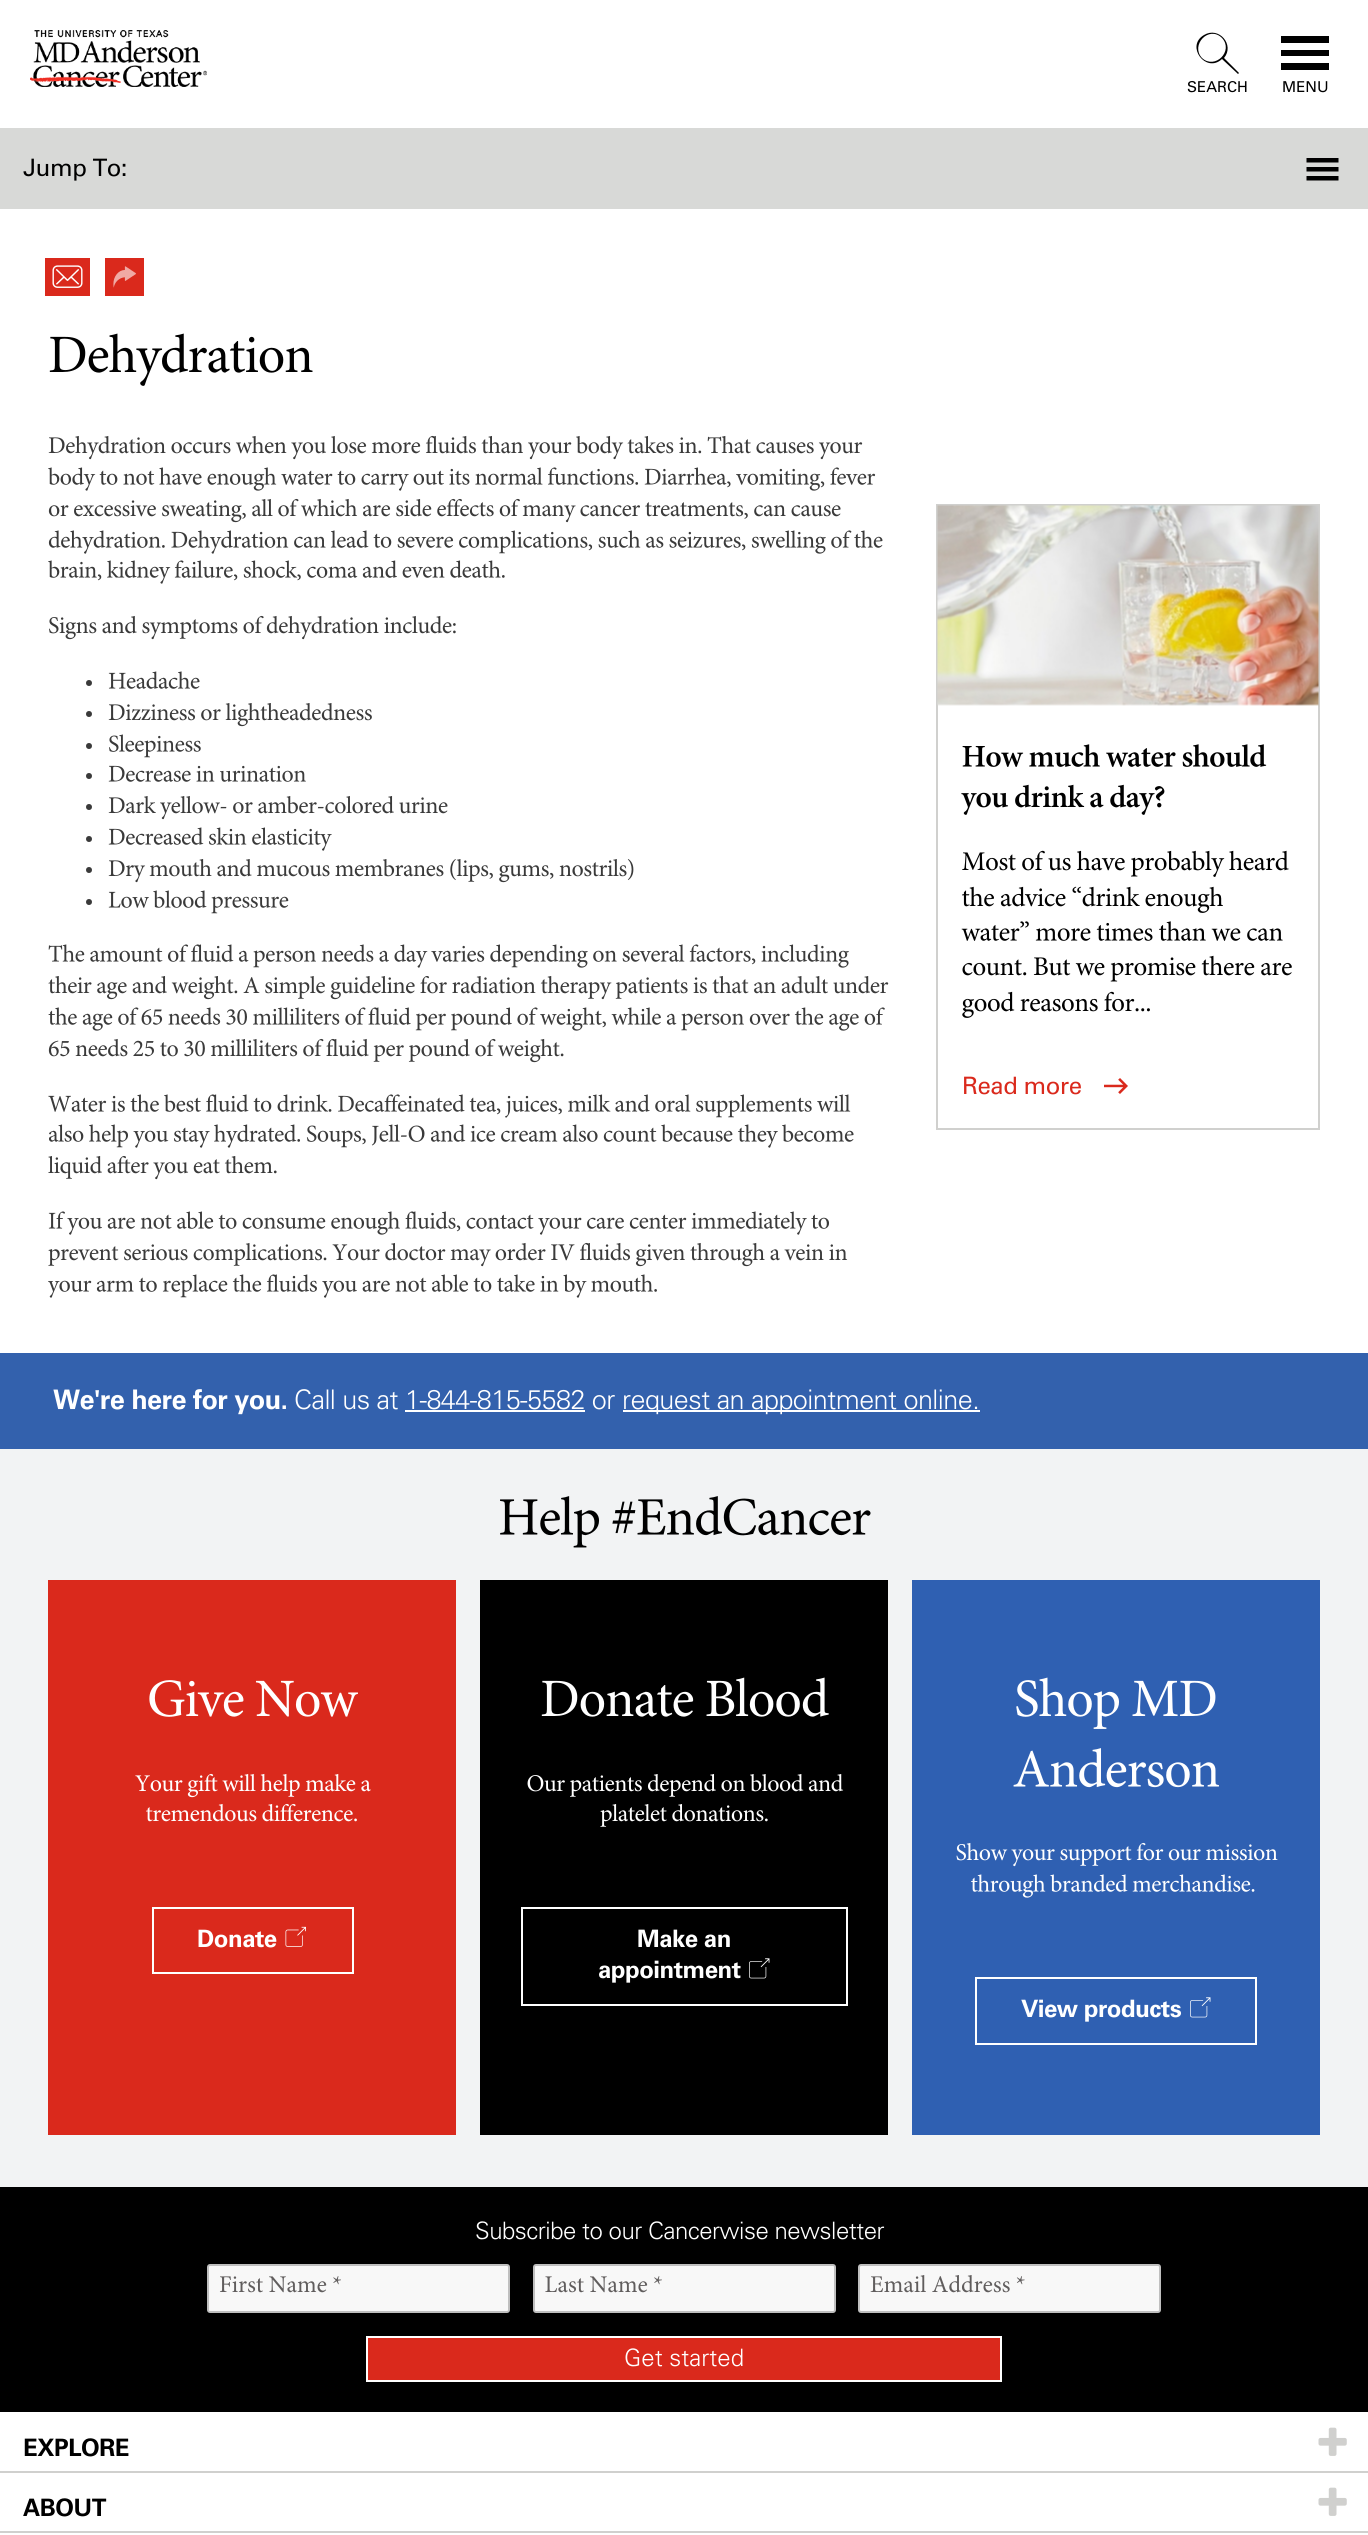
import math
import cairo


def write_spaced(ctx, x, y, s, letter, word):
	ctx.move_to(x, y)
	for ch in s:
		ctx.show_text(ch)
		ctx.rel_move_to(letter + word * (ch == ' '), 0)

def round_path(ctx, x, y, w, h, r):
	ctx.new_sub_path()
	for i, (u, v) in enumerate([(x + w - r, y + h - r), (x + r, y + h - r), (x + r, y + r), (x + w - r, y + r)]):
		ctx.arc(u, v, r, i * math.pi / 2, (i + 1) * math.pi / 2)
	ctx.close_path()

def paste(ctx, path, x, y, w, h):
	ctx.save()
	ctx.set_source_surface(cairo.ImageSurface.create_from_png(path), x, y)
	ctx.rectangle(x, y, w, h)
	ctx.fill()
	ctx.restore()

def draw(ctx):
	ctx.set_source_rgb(1, 1, 1)
	ctx.paint()
	paste(ctx, 'media/1.png', 30, 30, 177, 57)
	ctx.set_source_rgb(0, 0, 0)
	ctx.new_path()
	ctx.move_to(1204, 35)
	ctx.curve_to(1219, 26, 1235, 45, 1224, 58)
	ctx.line_to(1239, 73)
	ctx.line_to(1238, 74)
	ctx.line_to(1222, 59)
	ctx.curve_to(1206, 74, 1185, 46, 1204, 35)
	ctx.close_path()
	ctx.move_to(1202, 58)
	ctx.curve_to(1215, 70, 1234, 51, 1222, 38)
	ctx.curve_to(1209, 25, 1190, 45, 1202, 58)
	ctx.close_path()
	ctx.fill()
	ctx.select_font_face('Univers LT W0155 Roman')
	ctx.set_font_size(15)
	ctx.move_to(1187, 92)
	ctx.show_text('SEARCH')
	ctx.new_path()
	ctx.move_to(1281, 50)
	ctx.line_to(1329, 50)
	ctx.line_to(1329, 56)
	ctx.line_to(1281, 56)
	ctx.close_path()
	ctx.move_to(1281, 63)
	ctx.line_to(1329, 63)
	ctx.line_to(1329, 70)
	ctx.line_to(1281, 70)
	ctx.close_path()
	ctx.move_to(1281, 36)
	ctx.line_to(1329, 36)
	ctx.line_to(1329, 43)
	ctx.line_to(1281, 43)
	ctx.close_path()
	ctx.fill()
	ctx.move_to(1282, 92)
	ctx.show_text('MENU')
	ctx.set_source_rgb(0.847, 0.851, 0.843)
	ctx.rectangle(0, 128, 1368, 81)
	ctx.fill()
	ctx.set_font_size(24)
	ctx.set_source_rgb(0, 0, 0)
	write_spaced(ctx, 23, 176, 'Jump To:', -0.5, 0)
	ctx.new_path()
	ctx.move_to(1306.5, 167)
	ctx.line_to(1338.5, 167)
	ctx.line_to(1338.5, 171.5)
	ctx.line_to(1306.5, 171.5)
	ctx.close_path()
	ctx.move_to(1306.5, 176)
	ctx.line_to(1338.5, 176)
	ctx.line_to(1338.5, 180.5)
	ctx.line_to(1306.5, 180.5)
	ctx.close_path()
	ctx.move_to(1306.5, 158)
	ctx.line_to(1338.5, 158)
	ctx.line_to(1338.5, 162.5)
	ctx.line_to(1306.5, 162.5)
	ctx.close_path()
	ctx.fill()
	ctx.set_source_rgb(0.855, 0.161, 0.11)
	ctx.rectangle(45, 258, 45, 38)
	ctx.fill()
	paste(ctx, 'media/2.png', 52, 265, 31, 23)
	ctx.rectangle(105, 258, 39, 38)
	ctx.fill()
	paste(ctx, 'media/3.png', 113, 266, 23, 22)
	paste(ctx, 'media/4.png', 49, 333, 264, 53)
	paste(ctx, 'media/5.png', 48, 435, 815, 25)
	paste(ctx, 'media/6.png', 48, 467, 828, 24)
	paste(ctx, 'media/7.png', 48, 498, 793, 25)
	paste(ctx, 'media/8.png', 48, 530, 835, 24)
	paste(ctx, 'media/9.png', 48, 560, 457, 24)
	paste(ctx, 'media/10.png', 49, 615, 407, 25)
	ctx.set_source_rgb(0.227, 0.227, 0.227)
	ctx.arc(89, 683, 3, 0, 2 * math.pi)
	ctx.fill()
	paste(ctx, 'media/11.png', 108, 671, 92, 18)
	ctx.arc(89, 714, 3, 0, 2 * math.pi)
	ctx.fill()
	paste(ctx, 'media/12.png', 108, 703, 264, 24)
	ctx.arc(89, 746, 3, 0, 2 * math.pi)
	ctx.fill()
	paste(ctx, 'media/13.png', 109, 734, 92, 24)
	ctx.arc(89, 776, 3, 0, 2 * math.pi)
	ctx.fill()
	paste(ctx, 'media/14.png', 108, 765, 198, 17)
	ctx.arc(89, 807, 3, 0, 2 * math.pi)
	ctx.fill()
	paste(ctx, 'media/15.png', 108, 796, 340, 24)
	ctx.arc(89, 839, 3, 0, 2 * math.pi)
	ctx.fill()
	paste(ctx, 'media/16.png', 108, 827, 224, 24)
	ctx.arc(89, 870, 3, 0, 2 * math.pi)
	ctx.fill()
	paste(ctx, 'media/17.png', 108, 859, 526, 24)
	ctx.arc(89, 902, 3, 0, 2 * math.pi)
	ctx.fill()
	paste(ctx, 'media/18.png', 108, 890, 181, 24)
	paste(ctx, 'media/19.png', 48, 944, 801, 24)
	paste(ctx, 'media/20.png', 48, 976, 841, 24)
	paste(ctx, 'media/21.png', 48, 1007, 837, 24)
	paste(ctx, 'media/22.png', 48, 1038, 516, 25)
	paste(ctx, 'media/23.png', 48, 1094, 803, 24)
	paste(ctx, 'media/24.png', 49, 1124, 805, 24)
	paste(ctx, 'media/25.png', 48, 1156, 229, 24)
	paste(ctx, 'media/26.png', 48, 1211, 781, 24)
	paste(ctx, 'media/27.png', 48, 1242, 800, 25)
	paste(ctx, 'media/28.png', 48, 1274, 609, 24)
	ctx.rectangle(937, 505, 382, 624)
	ctx.set_source_rgb(0.816, 0.816, 0.808)
	ctx.stroke()
	paste(ctx, 'media/29.png', 937, 505, 382, 201)
	paste(ctx, 'media/30.png', 962, 744, 305, 23)
	paste(ctx, 'media/31.png', 961, 784, 204, 31)
	paste(ctx, 'media/32.png', 962, 850, 327, 27)
	paste(ctx, 'media/33.png', 962, 886, 261, 27)
	paste(ctx, 'media/34.png', 961, 921, 322, 20)
	paste(ctx, 'media/35.png', 962, 955, 330, 27)
	paste(ctx, 'media/36.png', 962, 991, 188, 27)
	ctx.set_source_rgb(0.855, 0.161, 0.11)
	write_spaced(ctx, 962, 1094, 'Read more', -0.5, 0)
	paste(ctx, 'media/37.png', 1104, 1078, 24, 16)
	ctx.set_source_rgb(0.2, 0.38, 0.678)
	ctx.rectangle(0, 1353, 1368, 96)
	ctx.fill()
	ctx.select_font_face('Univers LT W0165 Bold', cairo.FONT_SLANT_NORMAL, cairo.FONT_WEIGHT_BOLD)
	ctx.set_font_size(27)
	ctx.set_source_rgb(1, 1, 1)
	write_spaced(ctx, 53, 1409, 'We\'re here for you.', -0.55, 0)
	ctx.select_font_face('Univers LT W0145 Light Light')
	write_spaced(ctx, 294, 1409, 'Call us at 1-844-815-5582 or', -0.55, 0)
	ctx.rectangle(623, 1410, 357, 2)
	ctx.fill()
	write_spaced(ctx, 622, 1409, 'request an appointment online.', -0.55, 0)
	ctx.rectangle(405, 1410, 180, 2)
	ctx.fill()
	ctx.set_source_rgb(0.949, 0.953, 0.957)
	ctx.rectangle(0, 1449, 1368, 738)
	ctx.fill()
	paste(ctx, 'media/38.png', 500, 1496, 371, 52)
	ctx.set_source_rgb(0.855, 0.161, 0.11)
	ctx.rectangle(48, 1580, 408, 555)
	ctx.fill()
	paste(ctx, 'media/39.png', 149, 1680, 209, 37)
	paste(ctx, 'media/40.png', 135, 1773, 236, 25)
	paste(ctx, 'media/41.png', 146, 1803, 211, 19)
	ctx.rectangle(153, 1908, 200, 65)
	ctx.set_source_rgb(1, 1, 1)
	ctx.stroke()
	ctx.select_font_face('Univers LT W0165 Bold', cairo.FONT_SLANT_NORMAL, cairo.FONT_WEIGHT_BOLD)
	ctx.set_font_size(24)
	write_spaced(ctx, 197, 1947, 'Donate', -0.5, 0)
	paste(ctx, 'media/42.png', 285, 1926, 21, 21)
	ctx.set_source_rgb(0, 0, 0)
	ctx.rectangle(480, 1580, 408, 555)
	ctx.fill()
	paste(ctx, 'media/43.png', 541, 1677, 288, 40)
	paste(ctx, 'media/44.png', 527, 1774, 317, 23)
	paste(ctx, 'media/45.png', 600, 1804, 168, 23)
	ctx.rectangle(522, 1908, 325, 97)
	ctx.set_source_rgb(1, 1, 1)
	ctx.stroke()
	write_spaced(ctx, 637, 1947, 'Make an', -0.5, 0)
	write_spaced(ctx, 598, 1978, 'appointment', -0.5, 0)
	paste(ctx, 'media/46.png', 749, 1958, 21, 21)
	ctx.set_source_rgb(0.184, 0.376, 0.698)
	ctx.rectangle(912, 1580, 408, 555)
	ctx.fill()
	paste(ctx, 'media/47.png', 1016, 1677, 200, 52)
	paste(ctx, 'media/48.png', 1013, 1748, 206, 40)
	paste(ctx, 'media/49.png', 956, 1842, 322, 25)
	paste(ctx, 'media/50.png', 971, 1874, 284, 24)
	ctx.rectangle(976, 1978, 280, 66)
	ctx.set_source_rgb(1, 1, 1)
	ctx.stroke()
	write_spaced(ctx, 1021, 2017, 'View products', -0.5, 0)
	paste(ctx, 'media/51.png', 1190, 1997, 21, 21)
	ctx.set_source_rgb(0, 0, 0)
	ctx.rectangle(0, 2187, 1368, 225)
	ctx.fill()
	ctx.select_font_face('Univers LT W0145 Light Light')
	ctx.set_source_rgb(1, 1, 1)
	write_spaced(ctx, 475, 2239, 'Subscribe to our Cancerwise newsletter', -0.5, 0)
	ctx.set_source_rgb(0.969, 0.969, 0.969)
	round_path(ctx, 208, 2265, 301, 47, 2)
	ctx.fill_preserve()
	ctx.set_source_rgb(0.749, 0.749, 0.749)
	ctx.stroke()
	paste(ctx, 'media/52.png', 219, 2276, 122, 17)
	ctx.set_source_rgb(0.969, 0.969, 0.969)
	round_path(ctx, 534, 2265, 301, 47, 2)
	ctx.fill_preserve()
	ctx.set_source_rgb(0.749, 0.749, 0.749)
	ctx.stroke()
	paste(ctx, 'media/53.png', 545, 2276, 117, 17)
	ctx.set_source_rgb(0.969, 0.969, 0.969)
	round_path(ctx, 859, 2265, 301, 47, 2)
	ctx.fill_preserve()
	ctx.set_source_rgb(0.749, 0.749, 0.749)
	ctx.stroke()
	paste(ctx, 'media/54.png', 870, 2275, 155, 18)
	ctx.set_source_rgb(0.855, 0.161, 0.11)
	ctx.rectangle(367, 2337, 634, 44)
	ctx.fill_preserve()
	ctx.set_source_rgb(1, 1, 1)
	ctx.stroke()
	ctx.move_to(624, 2366)
	ctx.show_text('Get started')
	ctx.set_source_rgb(0.816, 0.816, 0.808)
	ctx.rectangle(0, 2471, 1368, 2)
	ctx.fill()
	ctx.select_font_face('Univers LT W0165 Bold', cairo.FONT_SLANT_NORMAL, cairo.FONT_WEIGHT_BOLD)
	ctx.set_source_rgb(0, 0, 0)
	write_spaced(ctx, 23, 2456, 'EXPLORE', -0.5, 0)
	paste(ctx, 'media/55.png', 1318, 2427, 29, 29)
	ctx.set_source_rgb(0.816, 0.816, 0.808)
	ctx.rectangle(0, 2531, 1368, 2)
	ctx.fill()
	ctx.set_source_rgb(0, 0, 0)
	write_spaced(ctx, 23, 2516, 'ABOUT', -0.5, 0)
	paste(ctx, 'media/55.png', 1318, 2487, 29, 29)


surface = cairo.ImageSurface(cairo.FORMAT_RGB24, 1368, 2535)
ctx = cairo.Context(surface)
options = cairo.FontOptions()
options.set_hint_metrics(cairo.HINT_METRICS_OFF)
options.set_hint_style(cairo.HINT_STYLE_NONE)
ctx.set_font_options(options)
ctx.set_miter_limit(4)
draw(ctx)
surface.write_to_png('image.png')
